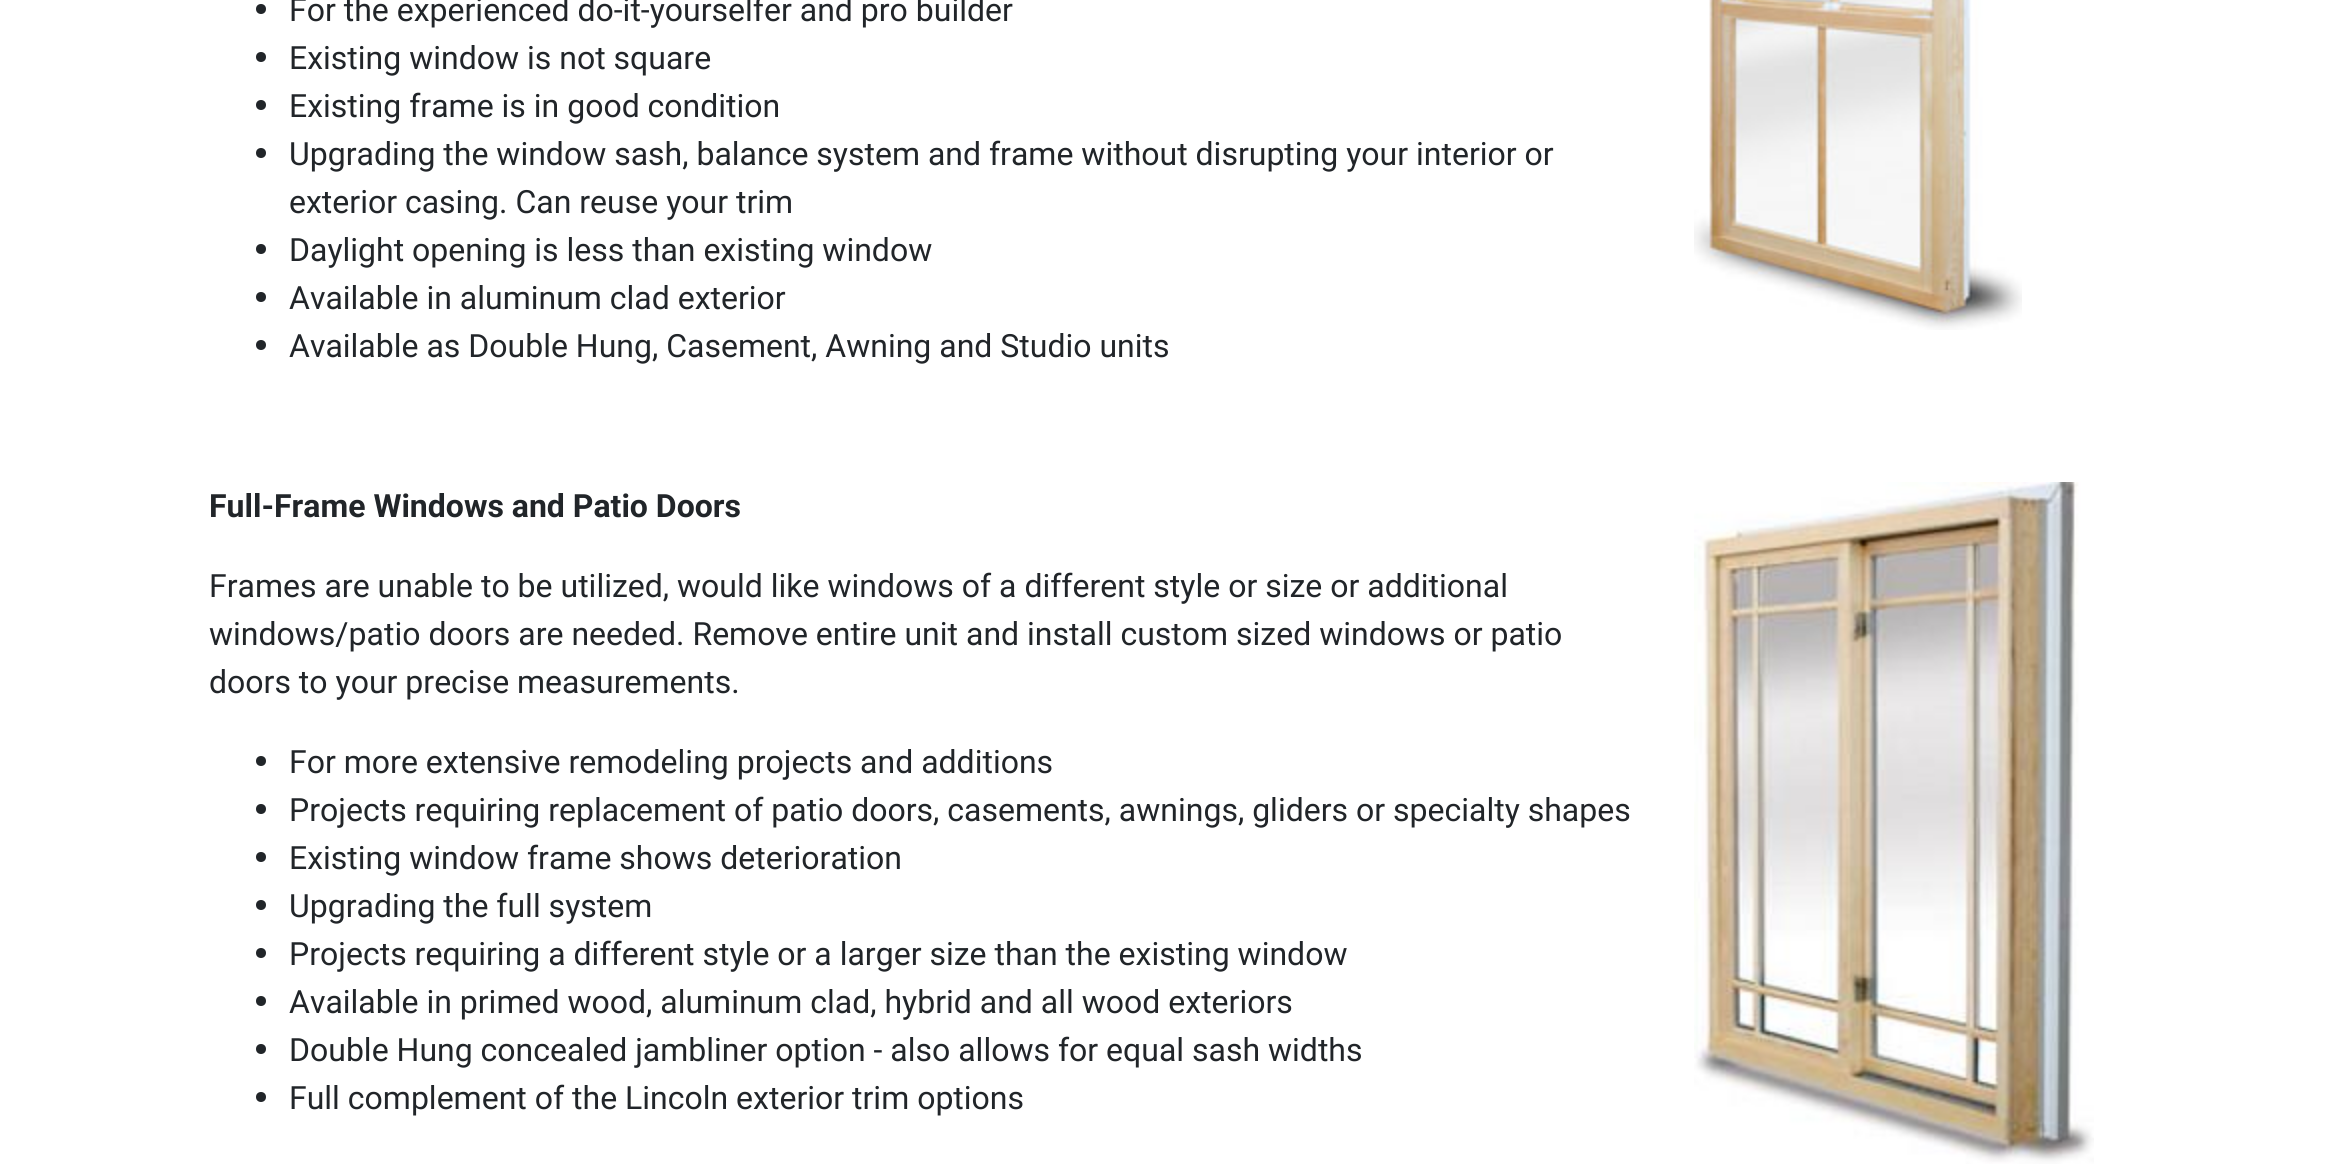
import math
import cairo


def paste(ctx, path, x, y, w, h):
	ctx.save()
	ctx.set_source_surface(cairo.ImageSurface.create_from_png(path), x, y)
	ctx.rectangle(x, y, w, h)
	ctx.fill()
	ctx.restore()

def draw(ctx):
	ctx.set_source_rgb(1, 1, 1)
	ctx.paint()
	ctx.set_source_rgb(0.129, 0.145, 0.161)
	ctx.arc(261, 9, 5, 0, 2 * math.pi)
	ctx.fill()
	ctx.select_font_face('Roboto')
	ctx.set_font_size(32)
	ctx.move_to(289, 21)
	ctx.show_text('For the experienced do-it-yourselfer and pro builder')
	ctx.new_path()
	ctx.arc(261, 57, 5, 0, 2 * math.pi)
	ctx.fill()
	ctx.move_to(289, 69)
	ctx.show_text('Existing window is not square')
	ctx.new_path()
	ctx.arc(261, 105, 5, 0, 2 * math.pi)
	ctx.fill()
	ctx.move_to(289, 117)
	ctx.show_text('Existing frame is in good condition')
	ctx.new_path()
	ctx.arc(261, 153, 5, 0, 2 * math.pi)
	ctx.fill()
	ctx.move_to(289, 165)
	ctx.show_text('Upgrading the window sash, balance system and frame without disrupting your interior or')
	ctx.move_to(289, 213)
	ctx.show_text('exterior casing. Can reuse your trim')
	ctx.new_path()
	ctx.arc(261, 249, 5, 0, 2 * math.pi)
	ctx.fill()
	ctx.move_to(289, 261)
	ctx.show_text('Daylight opening is less than existing window')
	ctx.new_path()
	ctx.arc(261, 297, 5, 0, 2 * math.pi)
	ctx.fill()
	ctx.move_to(289, 309)
	ctx.show_text('Available in aluminum clad exterior')
	ctx.new_path()
	ctx.arc(261, 345, 5, 0, 2 * math.pi)
	ctx.fill()
	ctx.move_to(289, 357)
	ctx.show_text('Available as Double Hung, Casement, Awning and Studio units')
	paste(ctx, 'media/1.png', 1694, 0, 328, 330)
	ctx.select_font_face('Roboto', cairo.FONT_SLANT_NORMAL, cairo.FONT_WEIGHT_BOLD)
	ctx.move_to(209, 517)
	ctx.show_text('Full-Frame Windows and Patio Doors')
	ctx.select_font_face('Roboto')
	for x, y, s in [
		(209, 597, 'Frames are unable to be utilized, would like windows of a different style or size or additional'),
		(209, 645, 'windows/patio doors are needed. Remove entire unit and install custom sized windows or patio'),
		(209, 693, 'doors to your precise measurements.'),
	]:
		ctx.move_to(x, y)
		ctx.show_text(s)
	ctx.new_path()
	ctx.arc(261, 761, 5, 0, 2 * math.pi)
	ctx.fill()
	ctx.move_to(289, 773)
	ctx.show_text('For more extensive remodeling projects and additions')
	ctx.new_path()
	ctx.arc(261, 809, 5, 0, 2 * math.pi)
	ctx.fill()
	ctx.move_to(289, 821)
	ctx.show_text('Projects requiring replacement of patio doors, casements, awnings, gliders or specialty shapes')
	ctx.new_path()
	ctx.arc(261, 857, 5, 0, 2 * math.pi)
	ctx.fill()
	ctx.move_to(289, 869)
	ctx.show_text('Existing window frame shows deterioration')
	ctx.new_path()
	ctx.arc(261, 905, 5, 0, 2 * math.pi)
	ctx.fill()
	ctx.move_to(289, 917)
	ctx.show_text('Upgrading the full system')
	ctx.new_path()
	ctx.arc(261, 953, 5, 0, 2 * math.pi)
	ctx.fill()
	ctx.move_to(289, 965)
	ctx.show_text('Projects requiring a different style or a larger size than the existing window')
	ctx.new_path()
	ctx.arc(261, 1001, 5, 0, 2 * math.pi)
	ctx.fill()
	ctx.move_to(289, 1013)
	ctx.show_text('Available in primed wood, aluminum clad, hybrid and all wood exteriors')
	ctx.new_path()
	ctx.arc(261, 1049, 5, 0, 2 * math.pi)
	ctx.fill()
	ctx.move_to(289, 1061)
	ctx.show_text('Double Hung concealed jambliner option - also allows for equal sash widths')
	ctx.new_path()
	ctx.arc(261, 1097, 5, 0, 2 * math.pi)
	ctx.fill()
	ctx.move_to(289, 1109)
	ctx.show_text('Full complement of the Lincoln exterior trim options')
	paste(ctx, 'media/2.png', 1694, 482, 400, 682)


surface = cairo.ImageSurface(cairo.FORMAT_RGB24, 2338, 1171)
ctx = cairo.Context(surface)
options = cairo.FontOptions()
options.set_hint_metrics(cairo.HINT_METRICS_OFF)
options.set_hint_style(cairo.HINT_STYLE_NONE)
ctx.set_font_options(options)
ctx.set_miter_limit(4)
draw(ctx)
surface.write_to_png('image.png')
